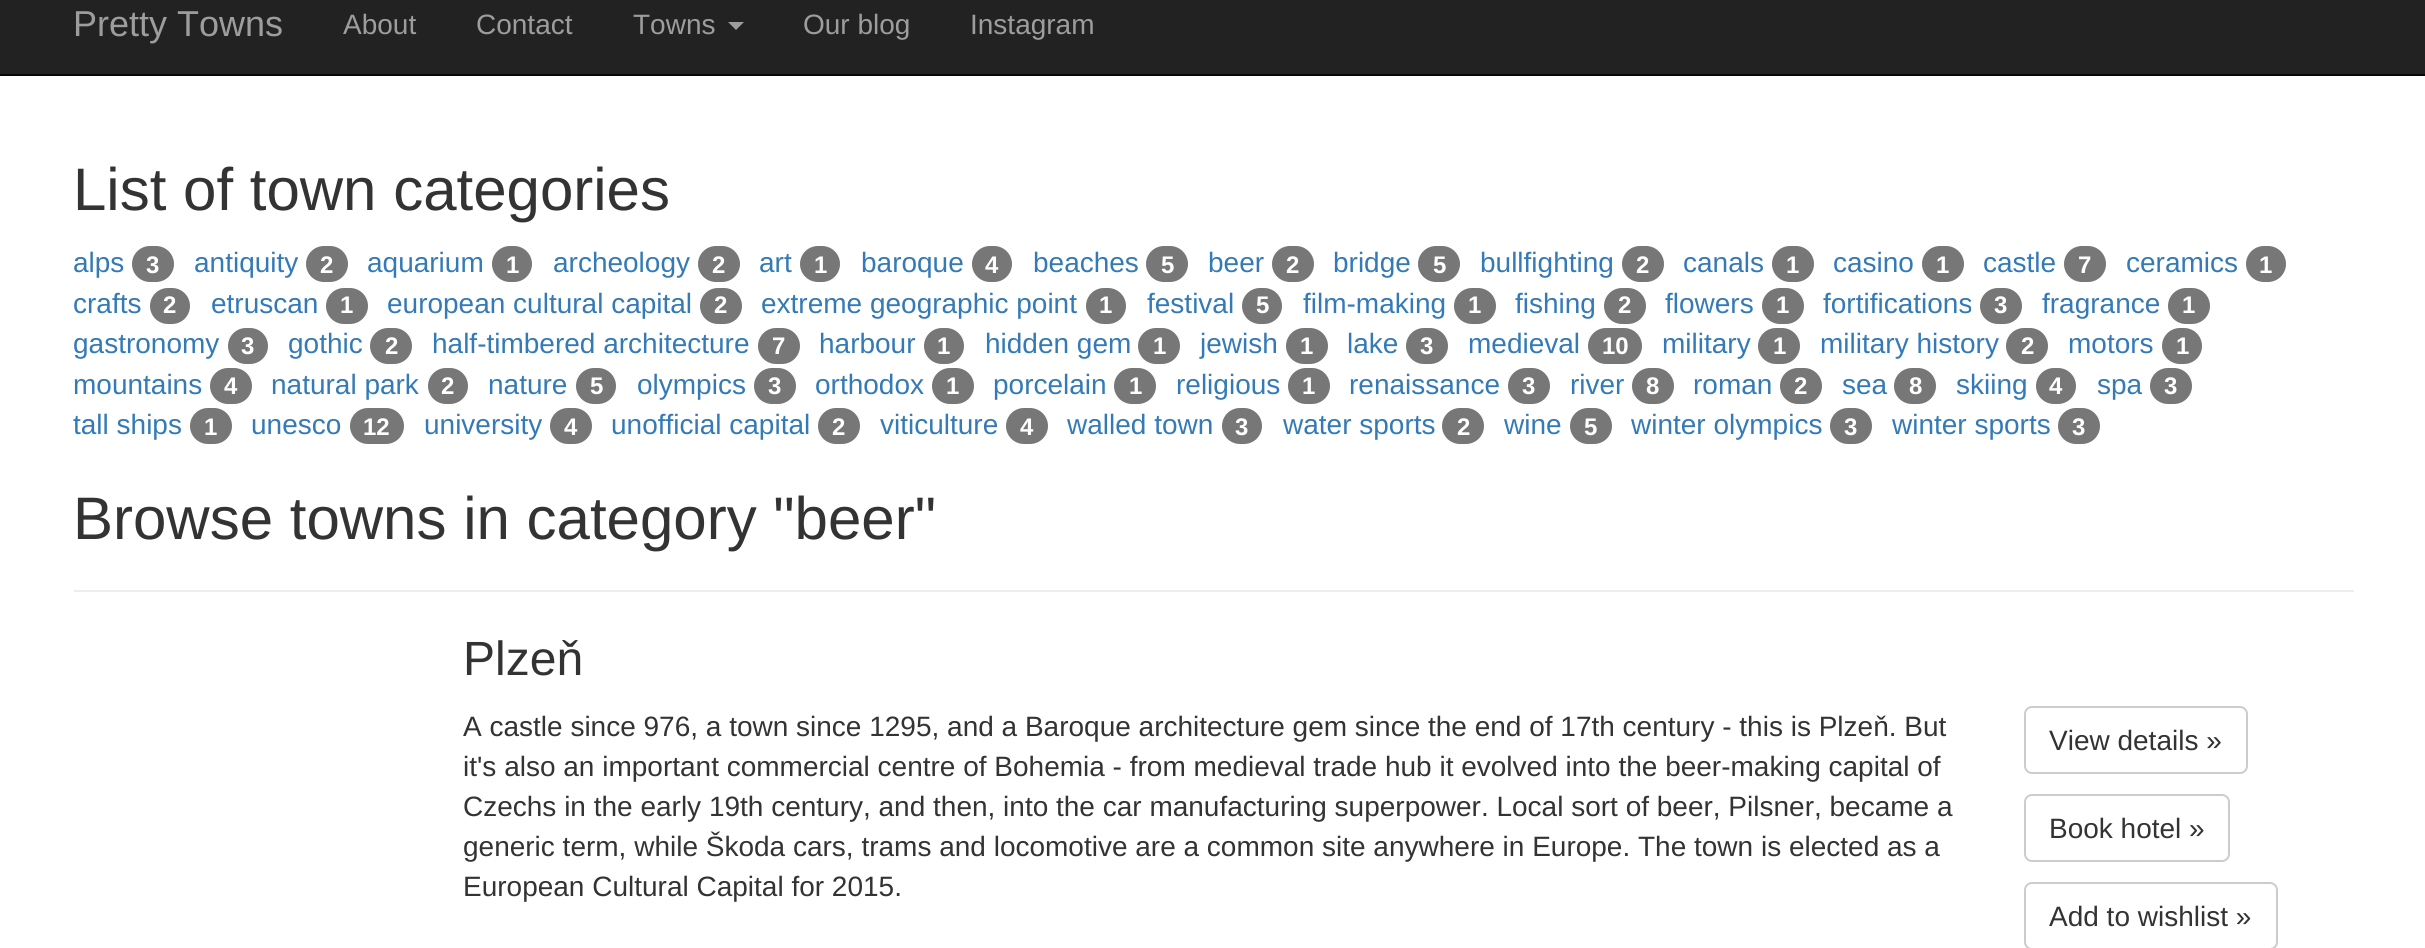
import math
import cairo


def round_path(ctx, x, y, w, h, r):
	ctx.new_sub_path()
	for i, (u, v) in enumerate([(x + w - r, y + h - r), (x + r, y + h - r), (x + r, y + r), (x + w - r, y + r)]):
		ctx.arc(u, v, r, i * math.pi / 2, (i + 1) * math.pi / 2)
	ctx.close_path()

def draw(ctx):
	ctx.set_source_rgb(1, 1, 1)
	ctx.paint()
	ctx.set_source_rgb(0.133, 0.133, 0.133)
	ctx.rectangle(0, 0, 2425, 74)
	ctx.fill()
	ctx.set_source_rgb(0.031, 0.031, 0.031)
	ctx.rectangle(0, 74, 2425, 2)
	ctx.fill()
	ctx.select_font_face('Liberation Sans')
	ctx.set_font_size(36)
	ctx.set_source_rgb(0.616, 0.616, 0.616)
	ctx.move_to(73, 36)
	ctx.show_text('Pretty Towns')
	ctx.set_font_size(28)
	for x, y, s in [
		(343, 34, 'About'),
		(476, 34, 'Contact'),
		(633, 34, 'Towns'),
	]:
		ctx.move_to(x, y)
		ctx.show_text(s)
	ctx.new_path()
	ctx.move_to(728, 22)
	ctx.line_to(744, 22)
	ctx.line_to(736, 30)
	ctx.close_path()
	ctx.fill()
	ctx.move_to(803, 34)
	ctx.show_text('Our blog')
	ctx.move_to(970, 34)
	ctx.show_text('Instagram')
	ctx.set_font_size(60)
	ctx.set_source_rgb(0.2, 0.2, 0.2)
	ctx.move_to(73, 210)
	ctx.show_text('List of town categories')
	ctx.set_font_size(28)
	ctx.set_source_rgb(0.2, 0.478, 0.718)
	ctx.move_to(73, 272)
	ctx.show_text('alps')
	ctx.set_source_rgb(0.467, 0.467, 0.467)
	round_path(ctx, 132, 246, 42, 36, 18)
	ctx.fill()
	ctx.select_font_face('Liberation Sans', cairo.FONT_SLANT_NORMAL, cairo.FONT_WEIGHT_BOLD)
	ctx.set_font_size(24)
	ctx.set_source_rgb(1, 1, 1)
	ctx.move_to(146, 273)
	ctx.show_text('3')
	ctx.select_font_face('Liberation Sans')
	ctx.set_font_size(28)
	ctx.set_source_rgb(0.2, 0.478, 0.718)
	ctx.move_to(194, 272)
	ctx.show_text('antiquity')
	ctx.set_source_rgb(0.467, 0.467, 0.467)
	round_path(ctx, 306, 246, 42, 36, 18)
	ctx.fill()
	ctx.select_font_face('Liberation Sans', cairo.FONT_SLANT_NORMAL, cairo.FONT_WEIGHT_BOLD)
	ctx.set_font_size(24)
	ctx.set_source_rgb(1, 1, 1)
	ctx.move_to(320, 273)
	ctx.show_text('2')
	ctx.select_font_face('Liberation Sans')
	ctx.set_font_size(28)
	ctx.set_source_rgb(0.2, 0.478, 0.718)
	ctx.move_to(367, 272)
	ctx.show_text('aquarium')
	ctx.set_source_rgb(0.467, 0.467, 0.467)
	round_path(ctx, 492, 246, 40, 36, 18)
	ctx.fill()
	ctx.select_font_face('Liberation Sans', cairo.FONT_SLANT_NORMAL, cairo.FONT_WEIGHT_BOLD)
	ctx.set_font_size(24)
	ctx.set_source_rgb(1, 1, 1)
	ctx.move_to(506, 273)
	ctx.show_text('1')
	ctx.select_font_face('Liberation Sans')
	ctx.set_font_size(28)
	ctx.set_source_rgb(0.2, 0.478, 0.718)
	ctx.move_to(553, 272)
	ctx.show_text('archeology')
	ctx.set_source_rgb(0.467, 0.467, 0.467)
	round_path(ctx, 698, 246, 42, 36, 18)
	ctx.fill()
	ctx.select_font_face('Liberation Sans', cairo.FONT_SLANT_NORMAL, cairo.FONT_WEIGHT_BOLD)
	ctx.set_font_size(24)
	ctx.set_source_rgb(1, 1, 1)
	ctx.move_to(712, 273)
	ctx.show_text('2')
	ctx.select_font_face('Liberation Sans')
	ctx.set_font_size(28)
	ctx.set_source_rgb(0.2, 0.478, 0.718)
	ctx.move_to(759, 272)
	ctx.show_text('art')
	ctx.set_source_rgb(0.467, 0.467, 0.467)
	round_path(ctx, 800, 246, 40, 36, 18)
	ctx.fill()
	ctx.select_font_face('Liberation Sans', cairo.FONT_SLANT_NORMAL, cairo.FONT_WEIGHT_BOLD)
	ctx.set_font_size(24)
	ctx.set_source_rgb(1, 1, 1)
	ctx.move_to(814, 273)
	ctx.show_text('1')
	ctx.select_font_face('Liberation Sans')
	ctx.set_font_size(28)
	ctx.set_source_rgb(0.2, 0.478, 0.718)
	ctx.move_to(861, 272)
	ctx.show_text('baroque')
	ctx.set_source_rgb(0.467, 0.467, 0.467)
	round_path(ctx, 972, 246, 40, 36, 18)
	ctx.fill()
	ctx.select_font_face('Liberation Sans', cairo.FONT_SLANT_NORMAL, cairo.FONT_WEIGHT_BOLD)
	ctx.set_font_size(24)
	ctx.set_source_rgb(1, 1, 1)
	ctx.move_to(985, 273)
	ctx.show_text('4')
	ctx.select_font_face('Liberation Sans')
	ctx.set_font_size(28)
	ctx.set_source_rgb(0.2, 0.478, 0.718)
	ctx.move_to(1033, 272)
	ctx.show_text('beaches')
	ctx.set_source_rgb(0.467, 0.467, 0.467)
	round_path(ctx, 1146, 246, 42, 36, 18)
	ctx.fill()
	ctx.select_font_face('Liberation Sans', cairo.FONT_SLANT_NORMAL, cairo.FONT_WEIGHT_BOLD)
	ctx.set_font_size(24)
	ctx.set_source_rgb(1, 1, 1)
	ctx.move_to(1161, 273)
	ctx.show_text('5')
	ctx.select_font_face('Liberation Sans')
	ctx.set_font_size(28)
	ctx.set_source_rgb(0.2, 0.478, 0.718)
	ctx.move_to(1208, 272)
	ctx.show_text('beer')
	ctx.set_source_rgb(0.467, 0.467, 0.467)
	round_path(ctx, 1272, 246, 42, 36, 18)
	ctx.fill()
	ctx.select_font_face('Liberation Sans', cairo.FONT_SLANT_NORMAL, cairo.FONT_WEIGHT_BOLD)
	ctx.set_font_size(24)
	ctx.set_source_rgb(1, 1, 1)
	ctx.move_to(1286, 273)
	ctx.show_text('2')
	ctx.select_font_face('Liberation Sans')
	ctx.set_font_size(28)
	ctx.set_source_rgb(0.2, 0.478, 0.718)
	ctx.move_to(1333, 272)
	ctx.show_text('bridge')
	ctx.set_source_rgb(0.467, 0.467, 0.467)
	round_path(ctx, 1418, 246, 42, 36, 18)
	ctx.fill()
	ctx.select_font_face('Liberation Sans', cairo.FONT_SLANT_NORMAL, cairo.FONT_WEIGHT_BOLD)
	ctx.set_font_size(24)
	ctx.set_source_rgb(1, 1, 1)
	ctx.move_to(1433, 273)
	ctx.show_text('5')
	ctx.select_font_face('Liberation Sans')
	ctx.set_font_size(28)
	ctx.set_source_rgb(0.2, 0.478, 0.718)
	ctx.move_to(1480, 272)
	ctx.show_text('bullfighting')
	ctx.set_source_rgb(0.467, 0.467, 0.467)
	round_path(ctx, 1622, 246, 42, 36, 18)
	ctx.fill()
	ctx.select_font_face('Liberation Sans', cairo.FONT_SLANT_NORMAL, cairo.FONT_WEIGHT_BOLD)
	ctx.set_font_size(24)
	ctx.set_source_rgb(1, 1, 1)
	ctx.move_to(1636, 273)
	ctx.show_text('2')
	ctx.select_font_face('Liberation Sans')
	ctx.set_font_size(28)
	ctx.set_source_rgb(0.2, 0.478, 0.718)
	ctx.move_to(1683, 272)
	ctx.show_text('canals')
	ctx.set_source_rgb(0.467, 0.467, 0.467)
	round_path(ctx, 1772, 246, 42, 36, 18)
	ctx.fill()
	ctx.select_font_face('Liberation Sans', cairo.FONT_SLANT_NORMAL, cairo.FONT_WEIGHT_BOLD)
	ctx.set_font_size(24)
	ctx.set_source_rgb(1, 1, 1)
	ctx.move_to(1786, 273)
	ctx.show_text('1')
	ctx.select_font_face('Liberation Sans')
	ctx.set_font_size(28)
	ctx.set_source_rgb(0.2, 0.478, 0.718)
	ctx.move_to(1833, 272)
	ctx.show_text('casino')
	ctx.set_source_rgb(0.467, 0.467, 0.467)
	round_path(ctx, 1922, 246, 42, 36, 18)
	ctx.fill()
	ctx.select_font_face('Liberation Sans', cairo.FONT_SLANT_NORMAL, cairo.FONT_WEIGHT_BOLD)
	ctx.set_font_size(24)
	ctx.set_source_rgb(1, 1, 1)
	ctx.move_to(1936, 273)
	ctx.show_text('1')
	ctx.select_font_face('Liberation Sans')
	ctx.set_font_size(28)
	ctx.set_source_rgb(0.2, 0.478, 0.718)
	ctx.move_to(1983, 272)
	ctx.show_text('castle')
	ctx.set_source_rgb(0.467, 0.467, 0.467)
	round_path(ctx, 2064, 246, 42, 36, 18)
	ctx.fill()
	ctx.select_font_face('Liberation Sans', cairo.FONT_SLANT_NORMAL, cairo.FONT_WEIGHT_BOLD)
	ctx.set_font_size(24)
	ctx.set_source_rgb(1, 1, 1)
	ctx.move_to(2078, 273)
	ctx.show_text('7')
	ctx.select_font_face('Liberation Sans')
	ctx.set_font_size(28)
	ctx.set_source_rgb(0.2, 0.478, 0.718)
	ctx.move_to(2126, 272)
	ctx.show_text('ceramics')
	ctx.set_source_rgb(0.467, 0.467, 0.467)
	round_path(ctx, 2246, 246, 40, 36, 18)
	ctx.fill()
	ctx.select_font_face('Liberation Sans', cairo.FONT_SLANT_NORMAL, cairo.FONT_WEIGHT_BOLD)
	ctx.set_font_size(24)
	ctx.set_source_rgb(1, 1, 1)
	ctx.move_to(2259, 273)
	ctx.show_text('1')
	ctx.select_font_face('Liberation Sans')
	ctx.set_font_size(28)
	ctx.set_source_rgb(0.2, 0.478, 0.718)
	ctx.move_to(73, 313)
	ctx.show_text('crafts')
	ctx.set_source_rgb(0.467, 0.467, 0.467)
	round_path(ctx, 150, 288, 40, 36, 18)
	ctx.fill()
	ctx.select_font_face('Liberation Sans', cairo.FONT_SLANT_NORMAL, cairo.FONT_WEIGHT_BOLD)
	ctx.set_font_size(24)
	ctx.set_source_rgb(1, 1, 1)
	ctx.move_to(163, 313)
	ctx.show_text('2')
	ctx.select_font_face('Liberation Sans')
	ctx.set_font_size(28)
	ctx.set_source_rgb(0.2, 0.478, 0.718)
	ctx.move_to(211, 313)
	ctx.show_text('etruscan')
	ctx.set_source_rgb(0.467, 0.467, 0.467)
	round_path(ctx, 326, 288, 42, 36, 18)
	ctx.fill()
	ctx.select_font_face('Liberation Sans', cairo.FONT_SLANT_NORMAL, cairo.FONT_WEIGHT_BOLD)
	ctx.set_font_size(24)
	ctx.set_source_rgb(1, 1, 1)
	ctx.move_to(340, 313)
	ctx.show_text('1')
	ctx.select_font_face('Liberation Sans')
	ctx.set_font_size(28)
	ctx.set_source_rgb(0.2, 0.478, 0.718)
	ctx.move_to(387, 313)
	ctx.show_text('european cultural capital')
	ctx.set_source_rgb(0.467, 0.467, 0.467)
	round_path(ctx, 700, 288, 42, 36, 18)
	ctx.fill()
	ctx.select_font_face('Liberation Sans', cairo.FONT_SLANT_NORMAL, cairo.FONT_WEIGHT_BOLD)
	ctx.set_font_size(24)
	ctx.set_source_rgb(1, 1, 1)
	ctx.move_to(714, 313)
	ctx.show_text('2')
	ctx.select_font_face('Liberation Sans')
	ctx.set_font_size(28)
	ctx.set_source_rgb(0.2, 0.478, 0.718)
	ctx.move_to(761, 313)
	ctx.show_text('extreme geographic point')
	ctx.set_source_rgb(0.467, 0.467, 0.467)
	round_path(ctx, 1086, 288, 40, 36, 18)
	ctx.fill()
	ctx.select_font_face('Liberation Sans', cairo.FONT_SLANT_NORMAL, cairo.FONT_WEIGHT_BOLD)
	ctx.set_font_size(24)
	ctx.set_source_rgb(1, 1, 1)
	ctx.move_to(1099, 313)
	ctx.show_text('1')
	ctx.select_font_face('Liberation Sans')
	ctx.set_font_size(28)
	ctx.set_source_rgb(0.2, 0.478, 0.718)
	ctx.move_to(1147, 313)
	ctx.show_text('festival')
	ctx.set_source_rgb(0.467, 0.467, 0.467)
	round_path(ctx, 1242, 288, 40, 36, 18)
	ctx.fill()
	ctx.select_font_face('Liberation Sans', cairo.FONT_SLANT_NORMAL, cairo.FONT_WEIGHT_BOLD)
	ctx.set_font_size(24)
	ctx.set_source_rgb(1, 1, 1)
	ctx.move_to(1256, 313)
	ctx.show_text('5')
	ctx.select_font_face('Liberation Sans')
	ctx.set_font_size(28)
	ctx.set_source_rgb(0.2, 0.478, 0.718)
	ctx.move_to(1303, 313)
	ctx.show_text('film-making')
	ctx.set_source_rgb(0.467, 0.467, 0.467)
	round_path(ctx, 1454, 288, 42, 36, 18)
	ctx.fill()
	ctx.select_font_face('Liberation Sans', cairo.FONT_SLANT_NORMAL, cairo.FONT_WEIGHT_BOLD)
	ctx.set_font_size(24)
	ctx.set_source_rgb(1, 1, 1)
	ctx.move_to(1468, 313)
	ctx.show_text('1')
	ctx.select_font_face('Liberation Sans')
	ctx.set_font_size(28)
	ctx.set_source_rgb(0.2, 0.478, 0.718)
	ctx.move_to(1515, 313)
	ctx.show_text('fishing')
	ctx.set_source_rgb(0.467, 0.467, 0.467)
	round_path(ctx, 1604, 288, 42, 36, 18)
	ctx.fill()
	ctx.select_font_face('Liberation Sans', cairo.FONT_SLANT_NORMAL, cairo.FONT_WEIGHT_BOLD)
	ctx.set_font_size(24)
	ctx.set_source_rgb(1, 1, 1)
	ctx.move_to(1618, 313)
	ctx.show_text('2')
	ctx.select_font_face('Liberation Sans')
	ctx.set_font_size(28)
	ctx.set_source_rgb(0.2, 0.478, 0.718)
	ctx.move_to(1665, 313)
	ctx.show_text('flowers')
	ctx.set_source_rgb(0.467, 0.467, 0.467)
	round_path(ctx, 1762, 288, 42, 36, 18)
	ctx.fill()
	ctx.select_font_face('Liberation Sans', cairo.FONT_SLANT_NORMAL, cairo.FONT_WEIGHT_BOLD)
	ctx.set_font_size(24)
	ctx.set_source_rgb(1, 1, 1)
	ctx.move_to(1776, 313)
	ctx.show_text('1')
	ctx.select_font_face('Liberation Sans')
	ctx.set_font_size(28)
	ctx.set_source_rgb(0.2, 0.478, 0.718)
	ctx.move_to(1823, 313)
	ctx.show_text('fortifications')
	ctx.set_source_rgb(0.467, 0.467, 0.467)
	round_path(ctx, 1980, 288, 42, 36, 18)
	ctx.fill()
	ctx.select_font_face('Liberation Sans', cairo.FONT_SLANT_NORMAL, cairo.FONT_WEIGHT_BOLD)
	ctx.set_font_size(24)
	ctx.set_source_rgb(1, 1, 1)
	ctx.move_to(1994, 313)
	ctx.show_text('3')
	ctx.select_font_face('Liberation Sans')
	ctx.set_font_size(28)
	ctx.set_source_rgb(0.2, 0.478, 0.718)
	ctx.move_to(2042, 313)
	ctx.show_text('fragrance')
	ctx.set_source_rgb(0.467, 0.467, 0.467)
	round_path(ctx, 2168, 288, 42, 36, 18)
	ctx.fill()
	ctx.select_font_face('Liberation Sans', cairo.FONT_SLANT_NORMAL, cairo.FONT_WEIGHT_BOLD)
	ctx.set_font_size(24)
	ctx.set_source_rgb(1, 1, 1)
	ctx.move_to(2182, 313)
	ctx.show_text('1')
	ctx.select_font_face('Liberation Sans')
	ctx.set_font_size(28)
	ctx.set_source_rgb(0.2, 0.478, 0.718)
	ctx.move_to(73, 353)
	ctx.show_text('gastronomy')
	ctx.set_source_rgb(0.467, 0.467, 0.467)
	round_path(ctx, 228, 328, 40, 36, 18)
	ctx.fill()
	ctx.select_font_face('Liberation Sans', cairo.FONT_SLANT_NORMAL, cairo.FONT_WEIGHT_BOLD)
	ctx.set_font_size(24)
	ctx.set_source_rgb(1, 1, 1)
	ctx.move_to(241, 354)
	ctx.show_text('3')
	ctx.select_font_face('Liberation Sans')
	ctx.set_font_size(28)
	ctx.set_source_rgb(0.2, 0.478, 0.718)
	ctx.move_to(288, 353)
	ctx.show_text('gothic')
	ctx.set_source_rgb(0.467, 0.467, 0.467)
	round_path(ctx, 370, 328, 42, 36, 18)
	ctx.fill()
	ctx.select_font_face('Liberation Sans', cairo.FONT_SLANT_NORMAL, cairo.FONT_WEIGHT_BOLD)
	ctx.set_font_size(24)
	ctx.set_source_rgb(1, 1, 1)
	ctx.move_to(385, 354)
	ctx.show_text('2')
	ctx.select_font_face('Liberation Sans')
	ctx.set_font_size(28)
	ctx.set_source_rgb(0.2, 0.478, 0.718)
	ctx.move_to(432, 353)
	ctx.show_text('half-timbered architecture')
	ctx.set_source_rgb(0.467, 0.467, 0.467)
	round_path(ctx, 758, 328, 42, 36, 18)
	ctx.fill()
	ctx.select_font_face('Liberation Sans', cairo.FONT_SLANT_NORMAL, cairo.FONT_WEIGHT_BOLD)
	ctx.set_font_size(24)
	ctx.set_source_rgb(1, 1, 1)
	ctx.move_to(772, 354)
	ctx.show_text('7')
	ctx.select_font_face('Liberation Sans')
	ctx.set_font_size(28)
	ctx.set_source_rgb(0.2, 0.478, 0.718)
	ctx.move_to(819, 353)
	ctx.show_text('harbour')
	ctx.set_source_rgb(0.467, 0.467, 0.467)
	round_path(ctx, 924, 328, 40, 36, 18)
	ctx.fill()
	ctx.select_font_face('Liberation Sans', cairo.FONT_SLANT_NORMAL, cairo.FONT_WEIGHT_BOLD)
	ctx.set_font_size(24)
	ctx.set_source_rgb(1, 1, 1)
	ctx.move_to(937, 354)
	ctx.show_text('1')
	ctx.select_font_face('Liberation Sans')
	ctx.set_font_size(28)
	ctx.set_source_rgb(0.2, 0.478, 0.718)
	ctx.move_to(985, 353)
	ctx.show_text('hidden gem')
	ctx.set_source_rgb(0.467, 0.467, 0.467)
	round_path(ctx, 1138, 328, 42, 36, 18)
	ctx.fill()
	ctx.select_font_face('Liberation Sans', cairo.FONT_SLANT_NORMAL, cairo.FONT_WEIGHT_BOLD)
	ctx.set_font_size(24)
	ctx.set_source_rgb(1, 1, 1)
	ctx.move_to(1153, 354)
	ctx.show_text('1')
	ctx.select_font_face('Liberation Sans')
	ctx.set_font_size(28)
	ctx.set_source_rgb(0.2, 0.478, 0.718)
	ctx.move_to(1200, 353)
	ctx.show_text('jewish')
	ctx.set_source_rgb(0.467, 0.467, 0.467)
	round_path(ctx, 1286, 328, 42, 36, 18)
	ctx.fill()
	ctx.select_font_face('Liberation Sans', cairo.FONT_SLANT_NORMAL, cairo.FONT_WEIGHT_BOLD)
	ctx.set_font_size(24)
	ctx.set_source_rgb(1, 1, 1)
	ctx.move_to(1300, 354)
	ctx.show_text('1')
	ctx.select_font_face('Liberation Sans')
	ctx.set_font_size(28)
	ctx.set_source_rgb(0.2, 0.478, 0.718)
	ctx.move_to(1347, 353)
	ctx.show_text('lake')
	ctx.set_source_rgb(0.467, 0.467, 0.467)
	round_path(ctx, 1406, 328, 42, 36, 18)
	ctx.fill()
	ctx.select_font_face('Liberation Sans', cairo.FONT_SLANT_NORMAL, cairo.FONT_WEIGHT_BOLD)
	ctx.set_font_size(24)
	ctx.set_source_rgb(1, 1, 1)
	ctx.move_to(1420, 354)
	ctx.show_text('3')
	ctx.select_font_face('Liberation Sans')
	ctx.set_font_size(28)
	ctx.set_source_rgb(0.2, 0.478, 0.718)
	ctx.move_to(1468, 353)
	ctx.show_text('medieval')
	ctx.set_source_rgb(0.467, 0.467, 0.467)
	round_path(ctx, 1588, 328, 54, 36, 18)
	ctx.fill()
	ctx.select_font_face('Liberation Sans', cairo.FONT_SLANT_NORMAL, cairo.FONT_WEIGHT_BOLD)
	ctx.set_font_size(24)
	ctx.set_source_rgb(1, 1, 1)
	ctx.move_to(1602, 354)
	ctx.show_text('10')
	ctx.select_font_face('Liberation Sans')
	ctx.set_font_size(28)
	ctx.set_source_rgb(0.2, 0.478, 0.718)
	ctx.move_to(1662, 353)
	ctx.show_text('military')
	ctx.set_source_rgb(0.467, 0.467, 0.467)
	round_path(ctx, 1758, 328, 42, 36, 18)
	ctx.fill()
	ctx.select_font_face('Liberation Sans', cairo.FONT_SLANT_NORMAL, cairo.FONT_WEIGHT_BOLD)
	ctx.set_font_size(24)
	ctx.set_source_rgb(1, 1, 1)
	ctx.move_to(1773, 354)
	ctx.show_text('1')
	ctx.select_font_face('Liberation Sans')
	ctx.set_font_size(28)
	ctx.set_source_rgb(0.2, 0.478, 0.718)
	ctx.move_to(1820, 353)
	ctx.show_text('military history')
	ctx.set_source_rgb(0.467, 0.467, 0.467)
	round_path(ctx, 2006, 328, 42, 36, 18)
	ctx.fill()
	ctx.select_font_face('Liberation Sans', cairo.FONT_SLANT_NORMAL, cairo.FONT_WEIGHT_BOLD)
	ctx.set_font_size(24)
	ctx.set_source_rgb(1, 1, 1)
	ctx.move_to(2021, 354)
	ctx.show_text('2')
	ctx.select_font_face('Liberation Sans')
	ctx.set_font_size(28)
	ctx.set_source_rgb(0.2, 0.478, 0.718)
	ctx.move_to(2068, 353)
	ctx.show_text('motors')
	ctx.set_source_rgb(0.467, 0.467, 0.467)
	round_path(ctx, 2162, 328, 40, 36, 18)
	ctx.fill()
	ctx.select_font_face('Liberation Sans', cairo.FONT_SLANT_NORMAL, cairo.FONT_WEIGHT_BOLD)
	ctx.set_font_size(24)
	ctx.set_source_rgb(1, 1, 1)
	ctx.move_to(2176, 354)
	ctx.show_text('1')
	ctx.select_font_face('Liberation Sans')
	ctx.set_font_size(28)
	ctx.set_source_rgb(0.2, 0.478, 0.718)
	ctx.move_to(73, 394)
	ctx.show_text('mountains')
	ctx.set_source_rgb(0.467, 0.467, 0.467)
	round_path(ctx, 210, 368, 42, 36, 18)
	ctx.fill()
	ctx.select_font_face('Liberation Sans', cairo.FONT_SLANT_NORMAL, cairo.FONT_WEIGHT_BOLD)
	ctx.set_font_size(24)
	ctx.set_source_rgb(1, 1, 1)
	ctx.move_to(224, 394)
	ctx.show_text('4')
	ctx.select_font_face('Liberation Sans')
	ctx.set_font_size(28)
	ctx.set_source_rgb(0.2, 0.478, 0.718)
	ctx.move_to(271, 394)
	ctx.show_text('natural park')
	ctx.set_source_rgb(0.467, 0.467, 0.467)
	round_path(ctx, 428, 368, 40, 36, 18)
	ctx.fill()
	ctx.select_font_face('Liberation Sans', cairo.FONT_SLANT_NORMAL, cairo.FONT_WEIGHT_BOLD)
	ctx.set_font_size(24)
	ctx.set_source_rgb(1, 1, 1)
	ctx.move_to(441, 394)
	ctx.show_text('2')
	ctx.select_font_face('Liberation Sans')
	ctx.set_font_size(28)
	ctx.set_source_rgb(0.2, 0.478, 0.718)
	ctx.move_to(488, 394)
	ctx.show_text('nature')
	ctx.set_source_rgb(0.467, 0.467, 0.467)
	round_path(ctx, 576, 368, 40, 36, 18)
	ctx.fill()
	ctx.select_font_face('Liberation Sans', cairo.FONT_SLANT_NORMAL, cairo.FONT_WEIGHT_BOLD)
	ctx.set_font_size(24)
	ctx.set_source_rgb(1, 1, 1)
	ctx.move_to(590, 394)
	ctx.show_text('5')
	ctx.select_font_face('Liberation Sans')
	ctx.set_font_size(28)
	ctx.set_source_rgb(0.2, 0.478, 0.718)
	ctx.move_to(637, 394)
	ctx.show_text('olympics')
	ctx.set_source_rgb(0.467, 0.467, 0.467)
	round_path(ctx, 754, 368, 42, 36, 18)
	ctx.fill()
	ctx.select_font_face('Liberation Sans', cairo.FONT_SLANT_NORMAL, cairo.FONT_WEIGHT_BOLD)
	ctx.set_font_size(24)
	ctx.set_source_rgb(1, 1, 1)
	ctx.move_to(768, 394)
	ctx.show_text('3')
	ctx.select_font_face('Liberation Sans')
	ctx.set_font_size(28)
	ctx.set_source_rgb(0.2, 0.478, 0.718)
	ctx.move_to(815, 394)
	ctx.show_text('orthodox')
	ctx.set_source_rgb(0.467, 0.467, 0.467)
	round_path(ctx, 932, 368, 42, 36, 18)
	ctx.fill()
	ctx.select_font_face('Liberation Sans', cairo.FONT_SLANT_NORMAL, cairo.FONT_WEIGHT_BOLD)
	ctx.set_font_size(24)
	ctx.set_source_rgb(1, 1, 1)
	ctx.move_to(946, 394)
	ctx.show_text('1')
	ctx.select_font_face('Liberation Sans')
	ctx.set_font_size(28)
	ctx.set_source_rgb(0.2, 0.478, 0.718)
	ctx.move_to(993, 394)
	ctx.show_text('porcelain')
	ctx.set_source_rgb(0.467, 0.467, 0.467)
	round_path(ctx, 1114, 368, 42, 36, 18)
	ctx.fill()
	ctx.select_font_face('Liberation Sans', cairo.FONT_SLANT_NORMAL, cairo.FONT_WEIGHT_BOLD)
	ctx.set_font_size(24)
	ctx.set_source_rgb(1, 1, 1)
	ctx.move_to(1129, 394)
	ctx.show_text('1')
	ctx.select_font_face('Liberation Sans')
	ctx.set_font_size(28)
	ctx.set_source_rgb(0.2, 0.478, 0.718)
	ctx.move_to(1176, 394)
	ctx.show_text('religious')
	ctx.set_source_rgb(0.467, 0.467, 0.467)
	round_path(ctx, 1288, 368, 42, 36, 18)
	ctx.fill()
	ctx.select_font_face('Liberation Sans', cairo.FONT_SLANT_NORMAL, cairo.FONT_WEIGHT_BOLD)
	ctx.set_font_size(24)
	ctx.set_source_rgb(1, 1, 1)
	ctx.move_to(1302, 394)
	ctx.show_text('1')
	ctx.select_font_face('Liberation Sans')
	ctx.set_font_size(28)
	ctx.set_source_rgb(0.2, 0.478, 0.718)
	ctx.move_to(1349, 394)
	ctx.show_text('renaissance')
	ctx.set_source_rgb(0.467, 0.467, 0.467)
	round_path(ctx, 1508, 368, 42, 36, 18)
	ctx.fill()
	ctx.select_font_face('Liberation Sans', cairo.FONT_SLANT_NORMAL, cairo.FONT_WEIGHT_BOLD)
	ctx.set_font_size(24)
	ctx.set_source_rgb(1, 1, 1)
	ctx.move_to(1522, 394)
	ctx.show_text('3')
	ctx.select_font_face('Liberation Sans')
	ctx.set_font_size(28)
	ctx.set_source_rgb(0.2, 0.478, 0.718)
	ctx.move_to(1570, 394)
	ctx.show_text('river')
	ctx.set_source_rgb(0.467, 0.467, 0.467)
	round_path(ctx, 1632, 368, 42, 36, 18)
	ctx.fill()
	ctx.select_font_face('Liberation Sans', cairo.FONT_SLANT_NORMAL, cairo.FONT_WEIGHT_BOLD)
	ctx.set_font_size(24)
	ctx.set_source_rgb(1, 1, 1)
	ctx.move_to(1646, 394)
	ctx.show_text('8')
	ctx.select_font_face('Liberation Sans')
	ctx.set_font_size(28)
	ctx.set_source_rgb(0.2, 0.478, 0.718)
	ctx.move_to(1693, 394)
	ctx.show_text('roman')
	ctx.set_source_rgb(0.467, 0.467, 0.467)
	round_path(ctx, 1780, 368, 42, 36, 18)
	ctx.fill()
	ctx.select_font_face('Liberation Sans', cairo.FONT_SLANT_NORMAL, cairo.FONT_WEIGHT_BOLD)
	ctx.set_font_size(24)
	ctx.set_source_rgb(1, 1, 1)
	ctx.move_to(1794, 394)
	ctx.show_text('2')
	ctx.select_font_face('Liberation Sans')
	ctx.set_font_size(28)
	ctx.set_source_rgb(0.2, 0.478, 0.718)
	ctx.move_to(1842, 394)
	ctx.show_text('sea')
	ctx.set_source_rgb(0.467, 0.467, 0.467)
	round_path(ctx, 1894, 368, 42, 36, 18)
	ctx.fill()
	ctx.select_font_face('Liberation Sans', cairo.FONT_SLANT_NORMAL, cairo.FONT_WEIGHT_BOLD)
	ctx.set_font_size(24)
	ctx.set_source_rgb(1, 1, 1)
	ctx.move_to(1909, 394)
	ctx.show_text('8')
	ctx.select_font_face('Liberation Sans')
	ctx.set_font_size(28)
	ctx.set_source_rgb(0.2, 0.478, 0.718)
	ctx.move_to(1956, 394)
	ctx.show_text('skiing')
	ctx.set_source_rgb(0.467, 0.467, 0.467)
	round_path(ctx, 2036, 368, 40, 36, 18)
	ctx.fill()
	ctx.select_font_face('Liberation Sans', cairo.FONT_SLANT_NORMAL, cairo.FONT_WEIGHT_BOLD)
	ctx.set_font_size(24)
	ctx.set_source_rgb(1, 1, 1)
	ctx.move_to(2049, 394)
	ctx.show_text('4')
	ctx.select_font_face('Liberation Sans')
	ctx.set_font_size(28)
	ctx.set_source_rgb(0.2, 0.478, 0.718)
	ctx.move_to(2097, 394)
	ctx.show_text('spa')
	ctx.set_source_rgb(0.467, 0.467, 0.467)
	round_path(ctx, 2150, 368, 42, 36, 18)
	ctx.fill()
	ctx.select_font_face('Liberation Sans', cairo.FONT_SLANT_NORMAL, cairo.FONT_WEIGHT_BOLD)
	ctx.set_font_size(24)
	ctx.set_source_rgb(1, 1, 1)
	ctx.move_to(2164, 394)
	ctx.show_text('3')
	ctx.select_font_face('Liberation Sans')
	ctx.set_font_size(28)
	ctx.set_source_rgb(0.2, 0.478, 0.718)
	ctx.move_to(73, 434)
	ctx.show_text('tall ships')
	ctx.set_source_rgb(0.467, 0.467, 0.467)
	round_path(ctx, 190, 408, 42, 36, 18)
	ctx.fill()
	ctx.select_font_face('Liberation Sans', cairo.FONT_SLANT_NORMAL, cairo.FONT_WEIGHT_BOLD)
	ctx.set_font_size(24)
	ctx.set_source_rgb(1, 1, 1)
	ctx.move_to(204, 435)
	ctx.show_text('1')
	ctx.select_font_face('Liberation Sans')
	ctx.set_font_size(28)
	ctx.set_source_rgb(0.2, 0.478, 0.718)
	ctx.move_to(251, 434)
	ctx.show_text('unesco')
	ctx.set_source_rgb(0.467, 0.467, 0.467)
	round_path(ctx, 350, 408, 54, 36, 18)
	ctx.fill()
	ctx.select_font_face('Liberation Sans', cairo.FONT_SLANT_NORMAL, cairo.FONT_WEIGHT_BOLD)
	ctx.set_font_size(24)
	ctx.set_source_rgb(1, 1, 1)
	ctx.move_to(363, 435)
	ctx.show_text('12')
	ctx.select_font_face('Liberation Sans')
	ctx.set_font_size(28)
	ctx.set_source_rgb(0.2, 0.478, 0.718)
	ctx.move_to(424, 434)
	ctx.show_text('university')
	ctx.set_source_rgb(0.467, 0.467, 0.467)
	round_path(ctx, 550, 408, 42, 36, 18)
	ctx.fill()
	ctx.select_font_face('Liberation Sans', cairo.FONT_SLANT_NORMAL, cairo.FONT_WEIGHT_BOLD)
	ctx.set_font_size(24)
	ctx.set_source_rgb(1, 1, 1)
	ctx.move_to(564, 435)
	ctx.show_text('4')
	ctx.select_font_face('Liberation Sans')
	ctx.set_font_size(28)
	ctx.set_source_rgb(0.2, 0.478, 0.718)
	ctx.move_to(611, 434)
	ctx.show_text('unofficial capital')
	ctx.set_source_rgb(0.467, 0.467, 0.467)
	round_path(ctx, 818, 408, 42, 36, 18)
	ctx.fill()
	ctx.select_font_face('Liberation Sans', cairo.FONT_SLANT_NORMAL, cairo.FONT_WEIGHT_BOLD)
	ctx.set_font_size(24)
	ctx.set_source_rgb(1, 1, 1)
	ctx.move_to(832, 435)
	ctx.show_text('2')
	ctx.select_font_face('Liberation Sans')
	ctx.set_font_size(28)
	ctx.set_source_rgb(0.2, 0.478, 0.718)
	ctx.move_to(880, 434)
	ctx.show_text('viticulture')
	ctx.set_source_rgb(0.467, 0.467, 0.467)
	round_path(ctx, 1006, 408, 42, 36, 18)
	ctx.fill()
	ctx.select_font_face('Liberation Sans', cairo.FONT_SLANT_NORMAL, cairo.FONT_WEIGHT_BOLD)
	ctx.set_font_size(24)
	ctx.set_source_rgb(1, 1, 1)
	ctx.move_to(1020, 435)
	ctx.show_text('4')
	ctx.select_font_face('Liberation Sans')
	ctx.set_font_size(28)
	ctx.set_source_rgb(0.2, 0.478, 0.718)
	ctx.move_to(1067, 434)
	ctx.show_text('walled town')
	ctx.set_source_rgb(0.467, 0.467, 0.467)
	round_path(ctx, 1222, 408, 40, 36, 18)
	ctx.fill()
	ctx.select_font_face('Liberation Sans', cairo.FONT_SLANT_NORMAL, cairo.FONT_WEIGHT_BOLD)
	ctx.set_font_size(24)
	ctx.set_source_rgb(1, 1, 1)
	ctx.move_to(1235, 435)
	ctx.show_text('3')
	ctx.select_font_face('Liberation Sans')
	ctx.set_font_size(28)
	ctx.set_source_rgb(0.2, 0.478, 0.718)
	ctx.move_to(1283, 434)
	ctx.show_text('water sports')
	ctx.set_source_rgb(0.467, 0.467, 0.467)
	round_path(ctx, 1442, 408, 42, 36, 18)
	ctx.fill()
	ctx.select_font_face('Liberation Sans', cairo.FONT_SLANT_NORMAL, cairo.FONT_WEIGHT_BOLD)
	ctx.set_font_size(24)
	ctx.set_source_rgb(1, 1, 1)
	ctx.move_to(1457, 435)
	ctx.show_text('2')
	ctx.select_font_face('Liberation Sans')
	ctx.set_font_size(28)
	ctx.set_source_rgb(0.2, 0.478, 0.718)
	ctx.move_to(1504, 434)
	ctx.show_text('wine')
	ctx.set_source_rgb(0.467, 0.467, 0.467)
	round_path(ctx, 1570, 408, 42, 36, 18)
	ctx.fill()
	ctx.select_font_face('Liberation Sans', cairo.FONT_SLANT_NORMAL, cairo.FONT_WEIGHT_BOLD)
	ctx.set_font_size(24)
	ctx.set_source_rgb(1, 1, 1)
	ctx.move_to(1584, 435)
	ctx.show_text('5')
	ctx.select_font_face('Liberation Sans')
	ctx.set_font_size(28)
	ctx.set_source_rgb(0.2, 0.478, 0.718)
	ctx.move_to(1631, 434)
	ctx.show_text('winter olympics')
	ctx.set_source_rgb(0.467, 0.467, 0.467)
	round_path(ctx, 1830, 408, 42, 36, 18)
	ctx.fill()
	ctx.select_font_face('Liberation Sans', cairo.FONT_SLANT_NORMAL, cairo.FONT_WEIGHT_BOLD)
	ctx.set_font_size(24)
	ctx.set_source_rgb(1, 1, 1)
	ctx.move_to(1844, 435)
	ctx.show_text('3')
	ctx.select_font_face('Liberation Sans')
	ctx.set_font_size(28)
	ctx.set_source_rgb(0.2, 0.478, 0.718)
	ctx.move_to(1892, 434)
	ctx.show_text('winter sports')
	ctx.set_source_rgb(0.467, 0.467, 0.467)
	round_path(ctx, 2058, 408, 42, 36, 18)
	ctx.fill()
	ctx.select_font_face('Liberation Sans', cairo.FONT_SLANT_NORMAL, cairo.FONT_WEIGHT_BOLD)
	ctx.set_font_size(24)
	ctx.set_source_rgb(1, 1, 1)
	ctx.move_to(2072, 435)
	ctx.show_text('3')
	ctx.select_font_face('Liberation Sans')
	ctx.set_font_size(60)
	ctx.set_source_rgb(0.2, 0.2, 0.2)
	ctx.move_to(73, 539)
	ctx.show_text('Browse towns in category "beer"')
	ctx.set_source_rgb(0.933, 0.933, 0.933)
	ctx.rectangle(74, 590, 2280, 2)
	ctx.fill()
	ctx.set_font_size(48)
	ctx.set_source_rgb(0.2, 0.2, 0.2)
	ctx.move_to(463, 675)
	ctx.show_text('Plzeň')
	ctx.set_font_size(28)
	for x, y, s in [
		(463, 736, 'A castle since 976, a town since 1295, and a Baroque architecture gem since the end of 17th century - this is Plzeň. But'),
		(463, 776, 'it\'s also an important commercial centre of Bohemia - from medieval trade hub it evolved into the beer-making capital of'),
		(463, 816, 'Czechs in the early 19th century, and then, into the car manufacturing superpower. Local sort of beer, Pilsner, became a'),
		(463, 856, 'generic term, while Škoda cars, trams and locomotive are a common site anywhere in Europe. The town is elected as a'),
		(463, 896, 'European Cultural Capital for 2015.'),
	]:
		ctx.move_to(x, y)
		ctx.show_text(s)
	round_path(ctx, 2025, 707, 222, 66, 7)
	ctx.set_source_rgb(0.8, 0.8, 0.8)
	ctx.stroke()
	ctx.set_source_rgb(0.2, 0.2, 0.2)
	ctx.move_to(2049, 750)
	ctx.show_text('View details »')
	round_path(ctx, 2025, 795, 204, 66, 7)
	ctx.set_source_rgb(0.8, 0.8, 0.8)
	ctx.stroke()
	ctx.set_source_rgb(0.2, 0.2, 0.2)
	ctx.move_to(2049, 838)
	ctx.show_text('Book hotel »')
	round_path(ctx, 2025, 883, 252, 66, 7)
	ctx.set_source_rgb(0.8, 0.8, 0.8)
	ctx.stroke()
	ctx.set_source_rgb(0.2, 0.2, 0.2)
	ctx.move_to(2049, 926)
	ctx.show_text('Add to wishlist »')


surface = cairo.ImageSurface(cairo.FORMAT_RGB24, 2425, 948)
ctx = cairo.Context(surface)
options = cairo.FontOptions()
options.set_hint_metrics(cairo.HINT_METRICS_OFF)
options.set_hint_style(cairo.HINT_STYLE_NONE)
ctx.set_font_options(options)
ctx.set_miter_limit(4)
draw(ctx)
surface.write_to_png('image.png')
